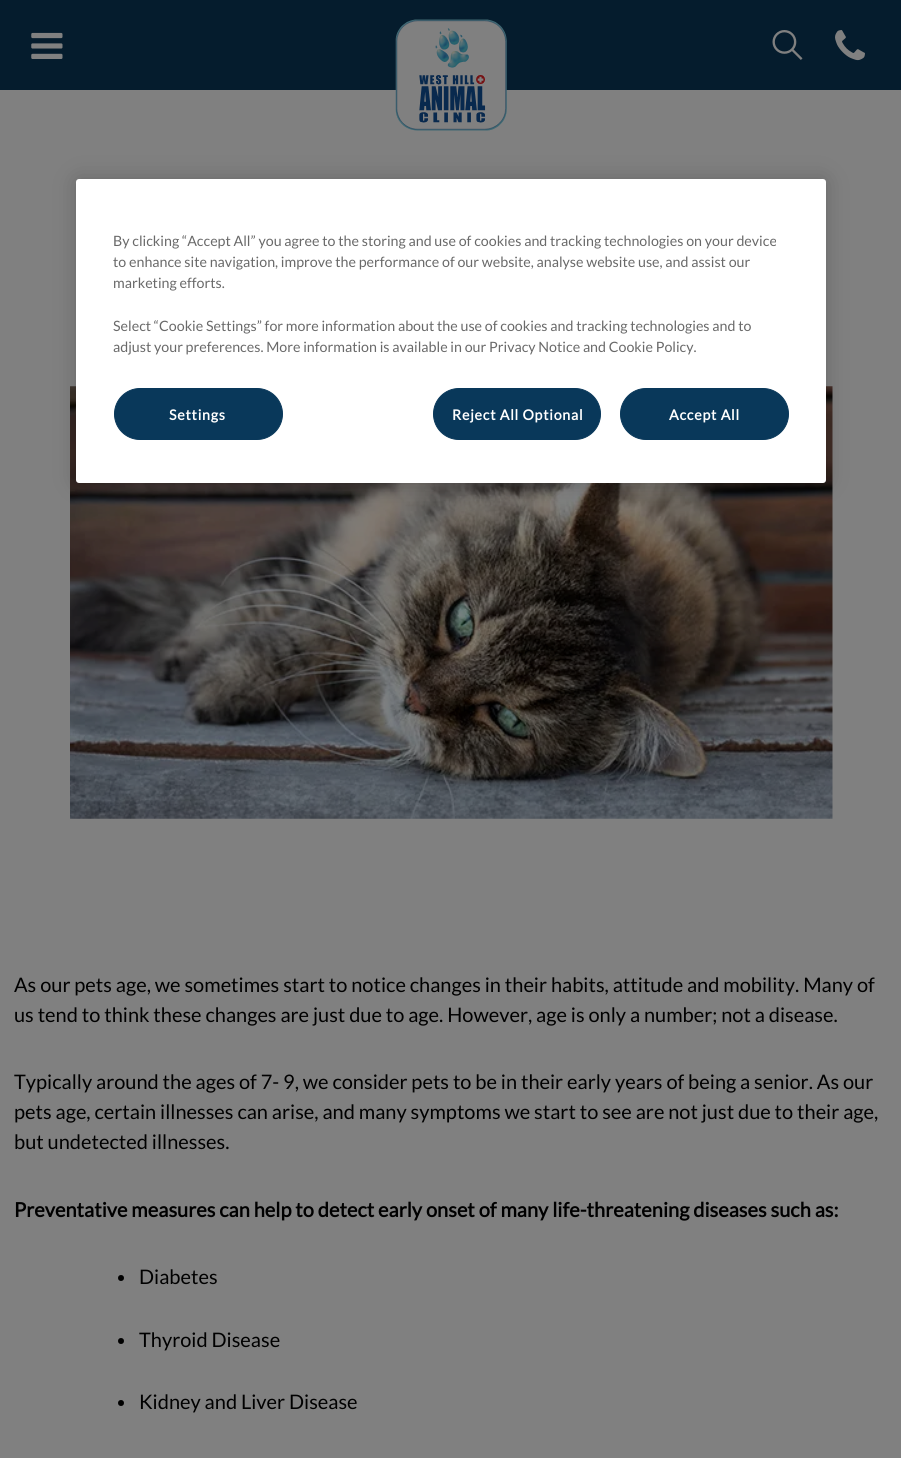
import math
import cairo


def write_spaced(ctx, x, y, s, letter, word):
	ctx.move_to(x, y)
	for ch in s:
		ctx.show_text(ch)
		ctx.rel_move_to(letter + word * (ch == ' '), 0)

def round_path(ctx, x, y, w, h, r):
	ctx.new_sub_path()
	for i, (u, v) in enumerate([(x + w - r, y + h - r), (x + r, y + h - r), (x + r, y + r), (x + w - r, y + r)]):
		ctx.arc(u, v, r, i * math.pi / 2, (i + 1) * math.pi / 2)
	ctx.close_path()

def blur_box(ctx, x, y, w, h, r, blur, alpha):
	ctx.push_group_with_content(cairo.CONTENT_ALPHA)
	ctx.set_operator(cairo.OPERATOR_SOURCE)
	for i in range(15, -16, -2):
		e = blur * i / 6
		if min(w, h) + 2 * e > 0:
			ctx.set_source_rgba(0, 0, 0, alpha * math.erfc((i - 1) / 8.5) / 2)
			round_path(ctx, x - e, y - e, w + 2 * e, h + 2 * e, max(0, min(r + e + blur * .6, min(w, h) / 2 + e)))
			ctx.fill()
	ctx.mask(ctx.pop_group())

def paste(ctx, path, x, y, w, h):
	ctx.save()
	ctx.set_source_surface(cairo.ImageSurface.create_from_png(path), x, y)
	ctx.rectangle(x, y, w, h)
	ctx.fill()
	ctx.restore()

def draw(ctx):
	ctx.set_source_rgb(0.502, 0.502, 0.502)
	ctx.paint()
	paste(ctx, 'media/5.png', 70, 386, 763, 433)
	ctx.set_source_rgb(0, 0, 0)
	blur_box(ctx, 76, 179, 750, 304, 3, 11, 0.2)
	ctx.set_source_rgb(1, 1, 1)
	round_path(ctx, 76, 179, 750, 304, 3)
	ctx.fill()
	ctx.select_font_face('Lato')
	ctx.set_font_size(14.25)
	ctx.set_source_rgb(0.412, 0.412, 0.412)
	for x, y, s in [
		(113, 246, 'By clicking “Accept All” you agree to the storing and use of cookies and tracking technologies on your device'),
		(113, 267, 'to enhance site navigation, improve the performance of our website, analyse website use, and assist our'),
		(113, 288, 'marketing efforts.'),
		(113, 331, 'Select “Cookie Settings” for more information about the use of cookies and tracking technologies and to'),
		(113, 352, 'adjust your preferences. More information is available in our Privacy Notice and Cookie Policy.'),
	]:
		ctx.move_to(x, y)
		ctx.show_text(s)
	ctx.set_source_rgb(0.039, 0.22, 0.353)
	round_path(ctx, 114.5, 388.5, 168, 51, 25.5)
	ctx.fill_preserve()
	ctx.set_line_width(1)
	ctx.stroke()
	ctx.select_font_face('Lato', cairo.FONT_SLANT_NORMAL, cairo.FONT_WEIGHT_BOLD)
	ctx.set_source_rgb(1, 1, 1)
	write_spaced(ctx, 169, 420, 'Settings', 0.75, 0)
	ctx.set_source_rgb(0.039, 0.22, 0.353)
	round_path(ctx, 433.5, 388.5, 167, 51, 25.5)
	ctx.fill_preserve()
	ctx.stroke()
	ctx.set_source_rgb(1, 1, 1)
	write_spaced(ctx, 452, 420, 'Reject All Optional', 0.75, 0)
	ctx.set_source_rgb(0.039, 0.22, 0.353)
	round_path(ctx, 620.5, 388.5, 168, 51, 25.5)
	ctx.fill_preserve()
	ctx.stroke()
	ctx.set_source_rgb(1, 1, 1)
	write_spaced(ctx, 669, 420, 'Accept All', 0.75, 0)
	ctx.set_source_rgb(0.02, 0.11, 0.176)
	ctx.rectangle(0, 0, 901, 90)
	ctx.fill()
	paste(ctx, 'media/1.png', 31, 32, 32, 27)
	paste(ctx, 'media/2.png', 395, 19, 112, 112)
	paste(ctx, 'media/3.png', 772, 30, 31, 30)
	paste(ctx, 'media/4.png', 835, 30, 30, 31)
	ctx.select_font_face('Lato')
	ctx.set_font_size(20)
	ctx.set_source_rgb(0, 0, 0)
	for x, y, s in [
		(14, 992, 'As our pets age, we sometimes start to notice changes in their habits, attitude and mobility. Many of'),
		(14, 1022, 'us tend to think these changes are just due to age. However, age is only a number; not a disease.'),
		(14, 1089, 'Typically around the ages of 7- 9, we consider pets to be in their early years of being a senior. As our'),
		(14, 1119, 'pets age, certain illnesses can arise, and many symptoms we start to see are not just due to their age,'),
		(14, 1149, 'but undetected illnesses.'),
	]:
		ctx.move_to(x, y)
		ctx.show_text(s)
	ctx.select_font_face('Lato', cairo.FONT_SLANT_NORMAL, cairo.FONT_WEIGHT_BOLD)
	ctx.move_to(14, 1217)
	ctx.show_text('Preventative measures can help to detect early onset of many life-threatening diseases such as:')
	ctx.new_path()
	ctx.arc(121, 1278, 3, 0, 2 * math.pi)
	ctx.fill()
	ctx.select_font_face('Lato')
	ctx.move_to(139, 1284)
	ctx.show_text('Diabetes')
	ctx.new_path()
	ctx.arc(121, 1341, 3, 0, 2 * math.pi)
	ctx.fill()
	ctx.move_to(139, 1347)
	ctx.show_text('Thyroid Disease')
	ctx.new_path()
	ctx.arc(121, 1403, 3, 0, 2 * math.pi)
	ctx.fill()
	ctx.move_to(139, 1409)
	ctx.show_text('Kidney and Liver Disease')


surface = cairo.ImageSurface(cairo.FORMAT_RGB24, 901, 1458)
ctx = cairo.Context(surface)
options = cairo.FontOptions()
options.set_hint_metrics(cairo.HINT_METRICS_OFF)
options.set_hint_style(cairo.HINT_STYLE_NONE)
ctx.set_font_options(options)
ctx.set_miter_limit(4)
draw(ctx)
surface.write_to_png('image.png')
